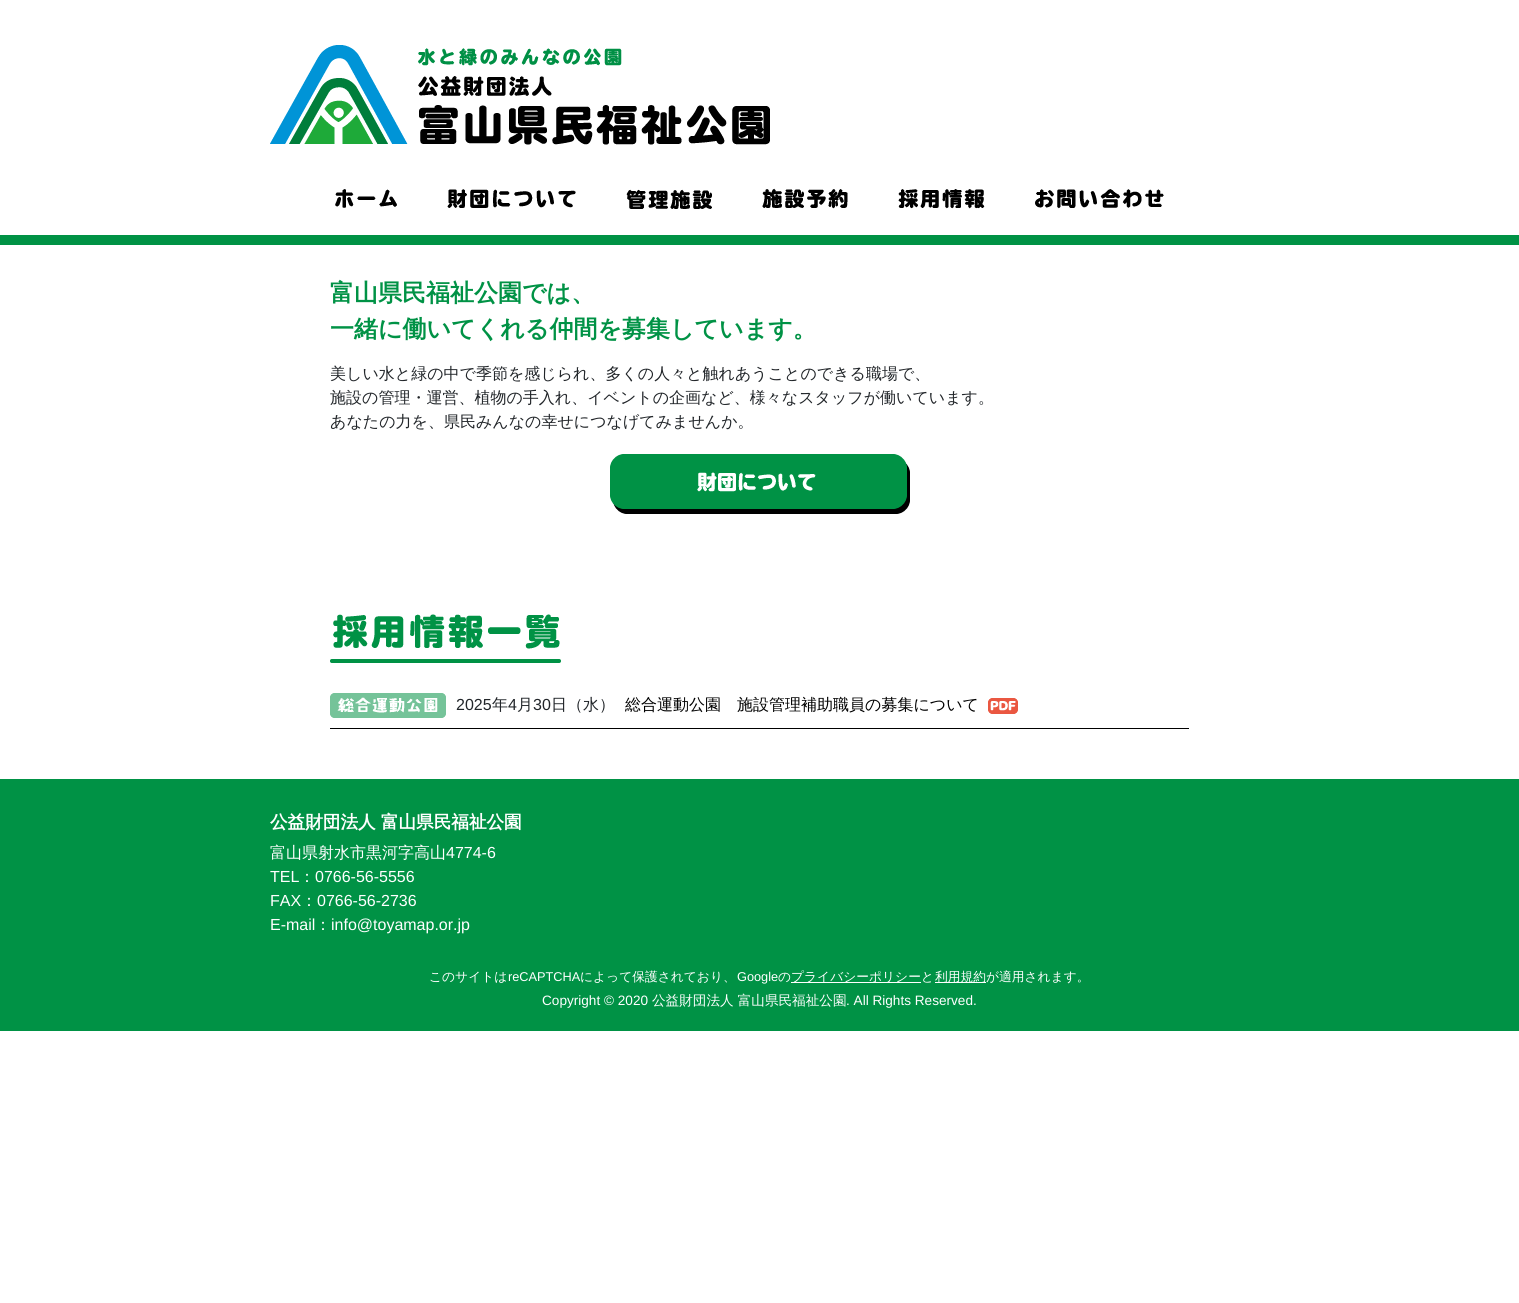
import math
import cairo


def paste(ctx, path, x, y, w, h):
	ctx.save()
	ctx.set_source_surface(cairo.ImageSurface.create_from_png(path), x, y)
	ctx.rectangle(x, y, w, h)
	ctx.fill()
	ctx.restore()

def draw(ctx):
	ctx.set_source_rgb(1, 1, 1)
	ctx.paint()
	paste(ctx, 'media/1.png', 270, 45, 500, 100)
	paste(ctx, 'media/2.png', 335, 189, 62, 19)
	paste(ctx, 'media/3.png', 447, 189, 129, 19)
	paste(ctx, 'media/4.png', 626, 189, 86, 20)
	paste(ctx, 'media/5.png', 762, 188, 86, 21)
	paste(ctx, 'media/6.png', 898, 189, 87, 20)
	paste(ctx, 'media/7.png', 1035, 189, 129, 20)
	ctx.set_source_rgb(0, 0.573, 0.271)
	ctx.rectangle(0, 235, 1519, 10)
	ctx.fill()
	ctx.select_font_face('WenQuanYi Zen Hei', cairo.FONT_SLANT_NORMAL, cairo.FONT_WEIGHT_BOLD)
	ctx.set_font_size(24)
	ctx.move_to(330, 301)
	ctx.show_text('富山県民福祉公園では、')
	ctx.move_to(330, 337)
	ctx.show_text('一緒に働いてくれる仲間を募集しています。')
	ctx.select_font_face('WenQuanYi Zen Hei Medium')
	ctx.set_font_size(16)
	ctx.set_source_rgb(0.129, 0.145, 0.161)
	for x, y, s in [
		(330, 379, '美しい水と緑の中で季節を感じられ、多くの人々と触れあうことのできる職場で、'),
		(330, 403, '施設の管理・運営、植物の手入れ、イベントの企画など、様々なスタッフが働いています。'),
		(330, 427, 'あなたの力を、県民みんなの幸せにつなげてみませんか。'),
	]:
		ctx.move_to(x, y)
		ctx.show_text(s)
	paste(ctx, 'media/8.png', 610, 454, 300, 60)
	paste(ctx, 'media/9.png', 330, 614, 231, 49)
	ctx.set_source_rgb(0, 0, 0)
	ctx.rectangle(330, 728, 859, 1)
	ctx.fill()
	paste(ctx, 'media/10.png', 330, 693, 116, 25)
	ctx.select_font_face('Liberation Sans')
	ctx.set_source_rgb(0.129, 0.145, 0.161)
	ctx.move_to(456, 710)
	ctx.show_text('2025')
	ctx.select_font_face('WenQuanYi Zen Hei Medium')
	ctx.move_to(492, 710)
	ctx.show_text('年')
	ctx.select_font_face('Liberation Sans')
	ctx.move_to(508, 710)
	ctx.show_text('4')
	ctx.select_font_face('WenQuanYi Zen Hei Medium')
	ctx.move_to(517, 710)
	ctx.show_text('月')
	ctx.select_font_face('Liberation Sans')
	ctx.move_to(533, 710)
	ctx.show_text('30')
	ctx.select_font_face('WenQuanYi Zen Hei Medium')
	ctx.move_to(551, 710)
	ctx.show_text('日（水）')
	ctx.set_source_rgb(0, 0, 0)
	ctx.move_to(625, 710)
	ctx.show_text('総合運動公園　施設管理補助職員の募集について')
	paste(ctx, 'media/11.png', 988, 698, 30, 16)
	ctx.set_source_rgb(0, 0.573, 0.271)
	ctx.rectangle(0, 779, 1519, 252)
	ctx.fill()
	ctx.select_font_face('WenQuanYi Zen Hei', cairo.FONT_SLANT_NORMAL, cairo.FONT_WEIGHT_BOLD)
	ctx.set_font_size(17.6)
	ctx.set_source_rgb(1, 1, 1)
	ctx.move_to(270, 828)
	ctx.show_text('公益財団法人 富山県民福祉公園')
	ctx.select_font_face('WenQuanYi Zen Hei Medium')
	ctx.set_font_size(16)
	ctx.move_to(270, 858)
	ctx.show_text('富山県射水市黒河字高山')
	ctx.select_font_face('Liberation Sans')
	ctx.move_to(446, 858)
	ctx.show_text('4774-6')
	ctx.move_to(270, 882)
	ctx.show_text('TEL')
	ctx.select_font_face('WenQuanYi Zen Hei Medium')
	ctx.move_to(299, 882)
	ctx.show_text('：')
	ctx.select_font_face('Liberation Sans')
	ctx.move_to(315, 882)
	ctx.show_text('0766-56-5556')
	ctx.move_to(270, 906)
	ctx.show_text('FAX')
	ctx.select_font_face('WenQuanYi Zen Hei Medium')
	ctx.move_to(301, 906)
	ctx.show_text('：')
	ctx.select_font_face('Liberation Sans')
	ctx.move_to(317, 906)
	ctx.show_text('0766-56-2736')
	ctx.move_to(270, 930)
	ctx.show_text('E-mail')
	ctx.select_font_face('WenQuanYi Zen Hei Medium')
	ctx.move_to(315, 930)
	ctx.show_text('：')
	ctx.select_font_face('Liberation Sans')
	ctx.move_to(331, 930)
	ctx.show_text('info@toyamap.or.jp')
	ctx.select_font_face('WenQuanYi Zen Hei Medium')
	ctx.set_font_size(12.75)
	ctx.move_to(429, 981)
	ctx.show_text('このサイトは')
	ctx.select_font_face('Liberation Sans')
	ctx.move_to(508, 981)
	ctx.show_text('reCAPTCHA')
	ctx.select_font_face('WenQuanYi Zen Hei Medium')
	ctx.move_to(580, 981)
	ctx.show_text('によって保護されており、')
	ctx.select_font_face('Liberation Sans')
	ctx.move_to(737, 981)
	ctx.show_text('Google')
	ctx.select_font_face('WenQuanYi Zen Hei Medium')
	ctx.move_to(778, 981)
	ctx.show_text('の')
	ctx.rectangle(791, 982, 130, 1)
	ctx.fill()
	ctx.move_to(791, 981)
	ctx.show_text('プライバシーポリシーと')
	ctx.rectangle(935, 982, 51, 1)
	ctx.fill()
	ctx.move_to(935, 981)
	ctx.show_text('利用規約が適用されます。')
	ctx.select_font_face('Liberation Sans')
	ctx.set_font_size(13.6)
	ctx.move_to(542, 1005)
	ctx.show_text('Copyright © 2020')
	ctx.select_font_face('WenQuanYi Zen Hei Medium')
	ctx.move_to(652, 1005)
	ctx.show_text('公益財団法人 富山県民福祉公園')
	ctx.select_font_face('Liberation Sans')
	ctx.move_to(846, 1005)
	ctx.show_text('. All Rights Reserved.')


surface = cairo.ImageSurface(cairo.FORMAT_RGB24, 1519, 1303)
ctx = cairo.Context(surface)
options = cairo.FontOptions()
options.set_hint_metrics(cairo.HINT_METRICS_OFF)
options.set_hint_style(cairo.HINT_STYLE_NONE)
ctx.set_font_options(options)
ctx.set_miter_limit(4)
draw(ctx)
surface.write_to_png('image.png')
